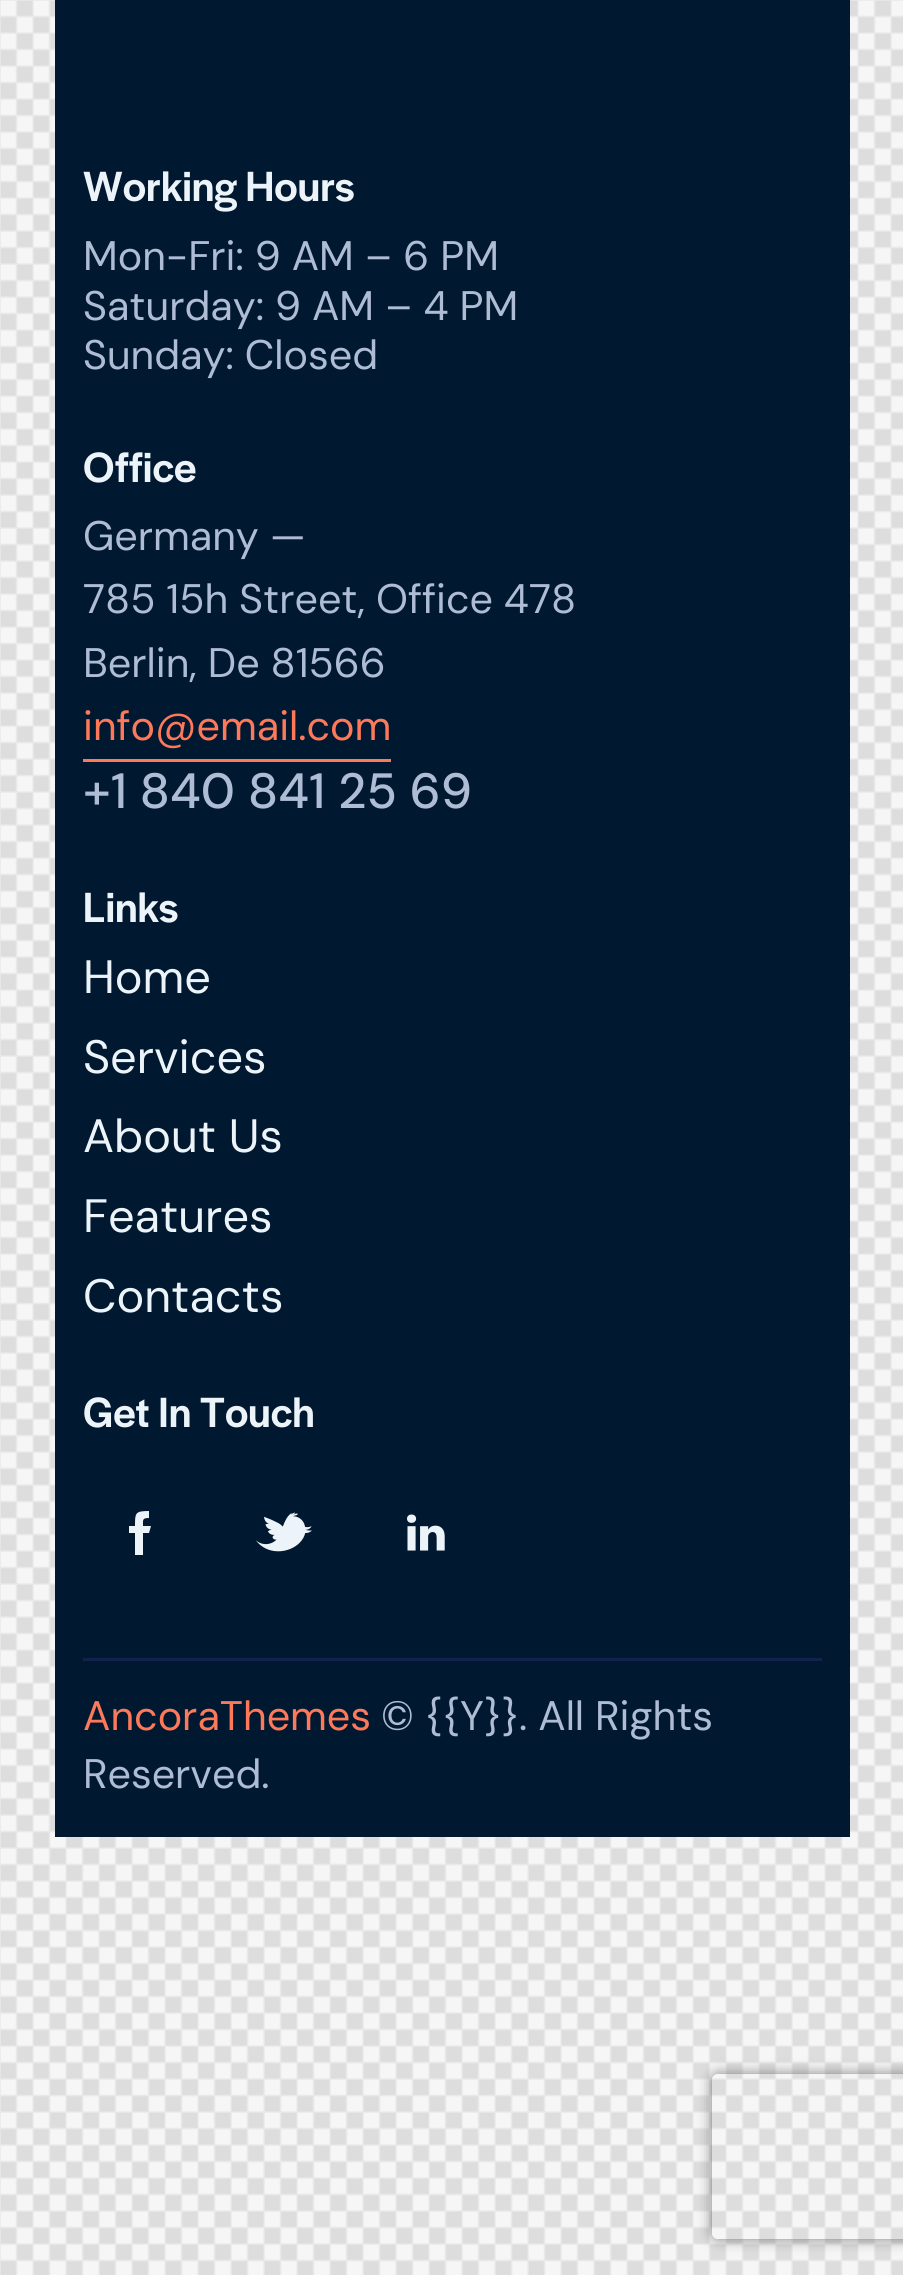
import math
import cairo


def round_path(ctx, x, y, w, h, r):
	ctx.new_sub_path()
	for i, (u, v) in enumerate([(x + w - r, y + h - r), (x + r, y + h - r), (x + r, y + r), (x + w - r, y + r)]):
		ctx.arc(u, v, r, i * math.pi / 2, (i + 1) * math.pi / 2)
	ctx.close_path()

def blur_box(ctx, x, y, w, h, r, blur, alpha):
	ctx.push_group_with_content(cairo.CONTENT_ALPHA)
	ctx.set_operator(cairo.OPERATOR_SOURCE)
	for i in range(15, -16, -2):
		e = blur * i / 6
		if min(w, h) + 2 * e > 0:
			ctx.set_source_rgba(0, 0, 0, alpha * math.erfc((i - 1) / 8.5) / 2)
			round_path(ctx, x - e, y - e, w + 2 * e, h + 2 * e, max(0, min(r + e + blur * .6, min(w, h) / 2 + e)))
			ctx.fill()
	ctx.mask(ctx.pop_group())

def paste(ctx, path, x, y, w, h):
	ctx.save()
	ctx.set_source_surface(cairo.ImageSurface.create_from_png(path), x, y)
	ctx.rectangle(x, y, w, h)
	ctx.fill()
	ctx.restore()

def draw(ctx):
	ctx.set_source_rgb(1, 1, 1)
	ctx.paint()
	paste(ctx, 'media/1.png', 0, 0, 903, 2275)
	ctx.set_source_rgb(0.004, 0.098, 0.188)
	ctx.rectangle(55, 0, 795, 1837)
	ctx.fill()
	ctx.select_font_face('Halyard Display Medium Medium')
	ctx.set_font_size(44)
	ctx.set_source_rgb(0.925, 0.957, 0.98)
	ctx.move_to(83, 201)
	ctx.show_text('Working Hours')
	ctx.select_font_face('DM Sans')
	ctx.set_font_size(41.25)
	ctx.set_source_rgb(0.682, 0.737, 0.831)
	for x, y, s in [
		(83, 270, 'Mon-Fri: 9 AM – 6 PM'),
		(83, 320, 'Saturday: 9 AM – 4 PM'),
		(83, 369, 'Sunday: Closed'),
	]:
		ctx.move_to(x, y)
		ctx.show_text(s)
	ctx.select_font_face('Halyard Display Medium Medium')
	ctx.set_font_size(44)
	ctx.set_source_rgb(0.925, 0.957, 0.98)
	ctx.move_to(83, 482)
	ctx.show_text('Office')
	ctx.select_font_face('DM Sans')
	ctx.set_font_size(41.25)
	ctx.set_source_rgb(0.682, 0.737, 0.831)
	for x, y, s in [
		(83, 550, 'Germany —'),
		(83, 613, '785 15h Street, Office 478'),
		(83, 677, 'Berlin, De 81566'),
	]:
		ctx.move_to(x, y)
		ctx.show_text(s)
	ctx.set_source_rgb(0.992, 0.475, 0.349)
	ctx.move_to(83, 740)
	ctx.show_text('info@email.com')
	ctx.rectangle(83, 759, 308, 3)
	ctx.fill()
	ctx.select_font_face('DM Sans Medium')
	ctx.set_font_size(49.5)
	ctx.set_source_rgb(0.682, 0.737, 0.831)
	ctx.move_to(83, 808)
	ctx.show_text('+1 840 841 25 69')
	ctx.select_font_face('Halyard Display Medium Medium')
	ctx.set_font_size(44)
	ctx.set_source_rgb(0.925, 0.957, 0.98)
	ctx.move_to(83, 922)
	ctx.show_text('Links')
	ctx.select_font_face('DM Sans')
	ctx.set_font_size(46.75)
	for x, y, s in [
		(83, 993, 'Home'),
		(83, 1073, 'Services'),
		(83, 1152, 'About Us'),
		(83, 1232, 'Features'),
		(83, 1312, 'Contacts'),
	]:
		ctx.move_to(x, y)
		ctx.show_text(s)
	ctx.select_font_face('Halyard Display Medium Medium')
	ctx.set_font_size(44)
	ctx.move_to(83, 1427)
	ctx.show_text('Get In Touch')
	ctx.new_path()
	ctx.move_to(143, 1526)
	ctx.curve_to(143, 1520, 142, 1518, 149, 1518)
	ctx.line_to(149, 1511)
	ctx.curve_to(135, 1511, 135, 1513, 135, 1526)
	ctx.line_to(129, 1526)
	ctx.line_to(129, 1533)
	ctx.line_to(135, 1533)
	ctx.line_to(135, 1555)
	ctx.line_to(143, 1555)
	ctx.line_to(143, 1533)
	ctx.line_to(149, 1533)
	ctx.line_to(151, 1526)
	ctx.close_path()
	ctx.fill()
	paste(ctx, 'media/2.png', 256, 1512, 56, 40)
	paste(ctx, 'media/3.png', 407, 1514, 38, 37)
	ctx.set_source_rgb(0.067, 0.133, 0.302)
	ctx.rectangle(83, 1658, 739, 3)
	ctx.fill()
	ctx.select_font_face('DM Sans')
	ctx.set_font_size(41.25)
	ctx.set_source_rgb(0.992, 0.475, 0.349)
	ctx.move_to(83, 1730)
	ctx.show_text('AncoraThemes')
	ctx.set_source_rgb(0.682, 0.737, 0.831)
	ctx.move_to(381, 1730)
	ctx.show_text('© {{Y}}. All Rights')
	ctx.move_to(83, 1788)
	ctx.show_text('Reserved.')
	ctx.save()
	ctx.set_fill_rule(cairo.FILL_RULE_EVEN_ODD)
	ctx.new_path()
	ctx.move_to(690, 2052)
	ctx.line_to(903, 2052)
	ctx.line_to(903, 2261)
	ctx.line_to(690, 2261)
	ctx.close_path()
	ctx.move_to(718, 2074)
	ctx.line_to(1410, 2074)
	ctx.curve_to(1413.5, 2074, 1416, 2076.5, 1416, 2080)
	ctx.line_to(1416, 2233)
	ctx.curve_to(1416, 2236.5, 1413.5, 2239, 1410, 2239)
	ctx.line_to(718, 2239)
	ctx.curve_to(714.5, 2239, 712, 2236.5, 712, 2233)
	ctx.line_to(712, 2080)
	ctx.curve_to(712, 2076.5, 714.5, 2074, 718, 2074)
	ctx.close_path()
	ctx.clip()
	ctx.set_source_rgb(0.502, 0.502, 0.502)
	blur_box(ctx, 712, 2074, 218, 165, 6, 7, 1)
	ctx.restore()


surface = cairo.ImageSurface(cairo.FORMAT_RGB24, 903, 2275)
ctx = cairo.Context(surface)
options = cairo.FontOptions()
options.set_hint_metrics(cairo.HINT_METRICS_OFF)
options.set_hint_style(cairo.HINT_STYLE_NONE)
ctx.set_font_options(options)
ctx.set_miter_limit(4)
draw(ctx)
surface.write_to_png('image.png')
